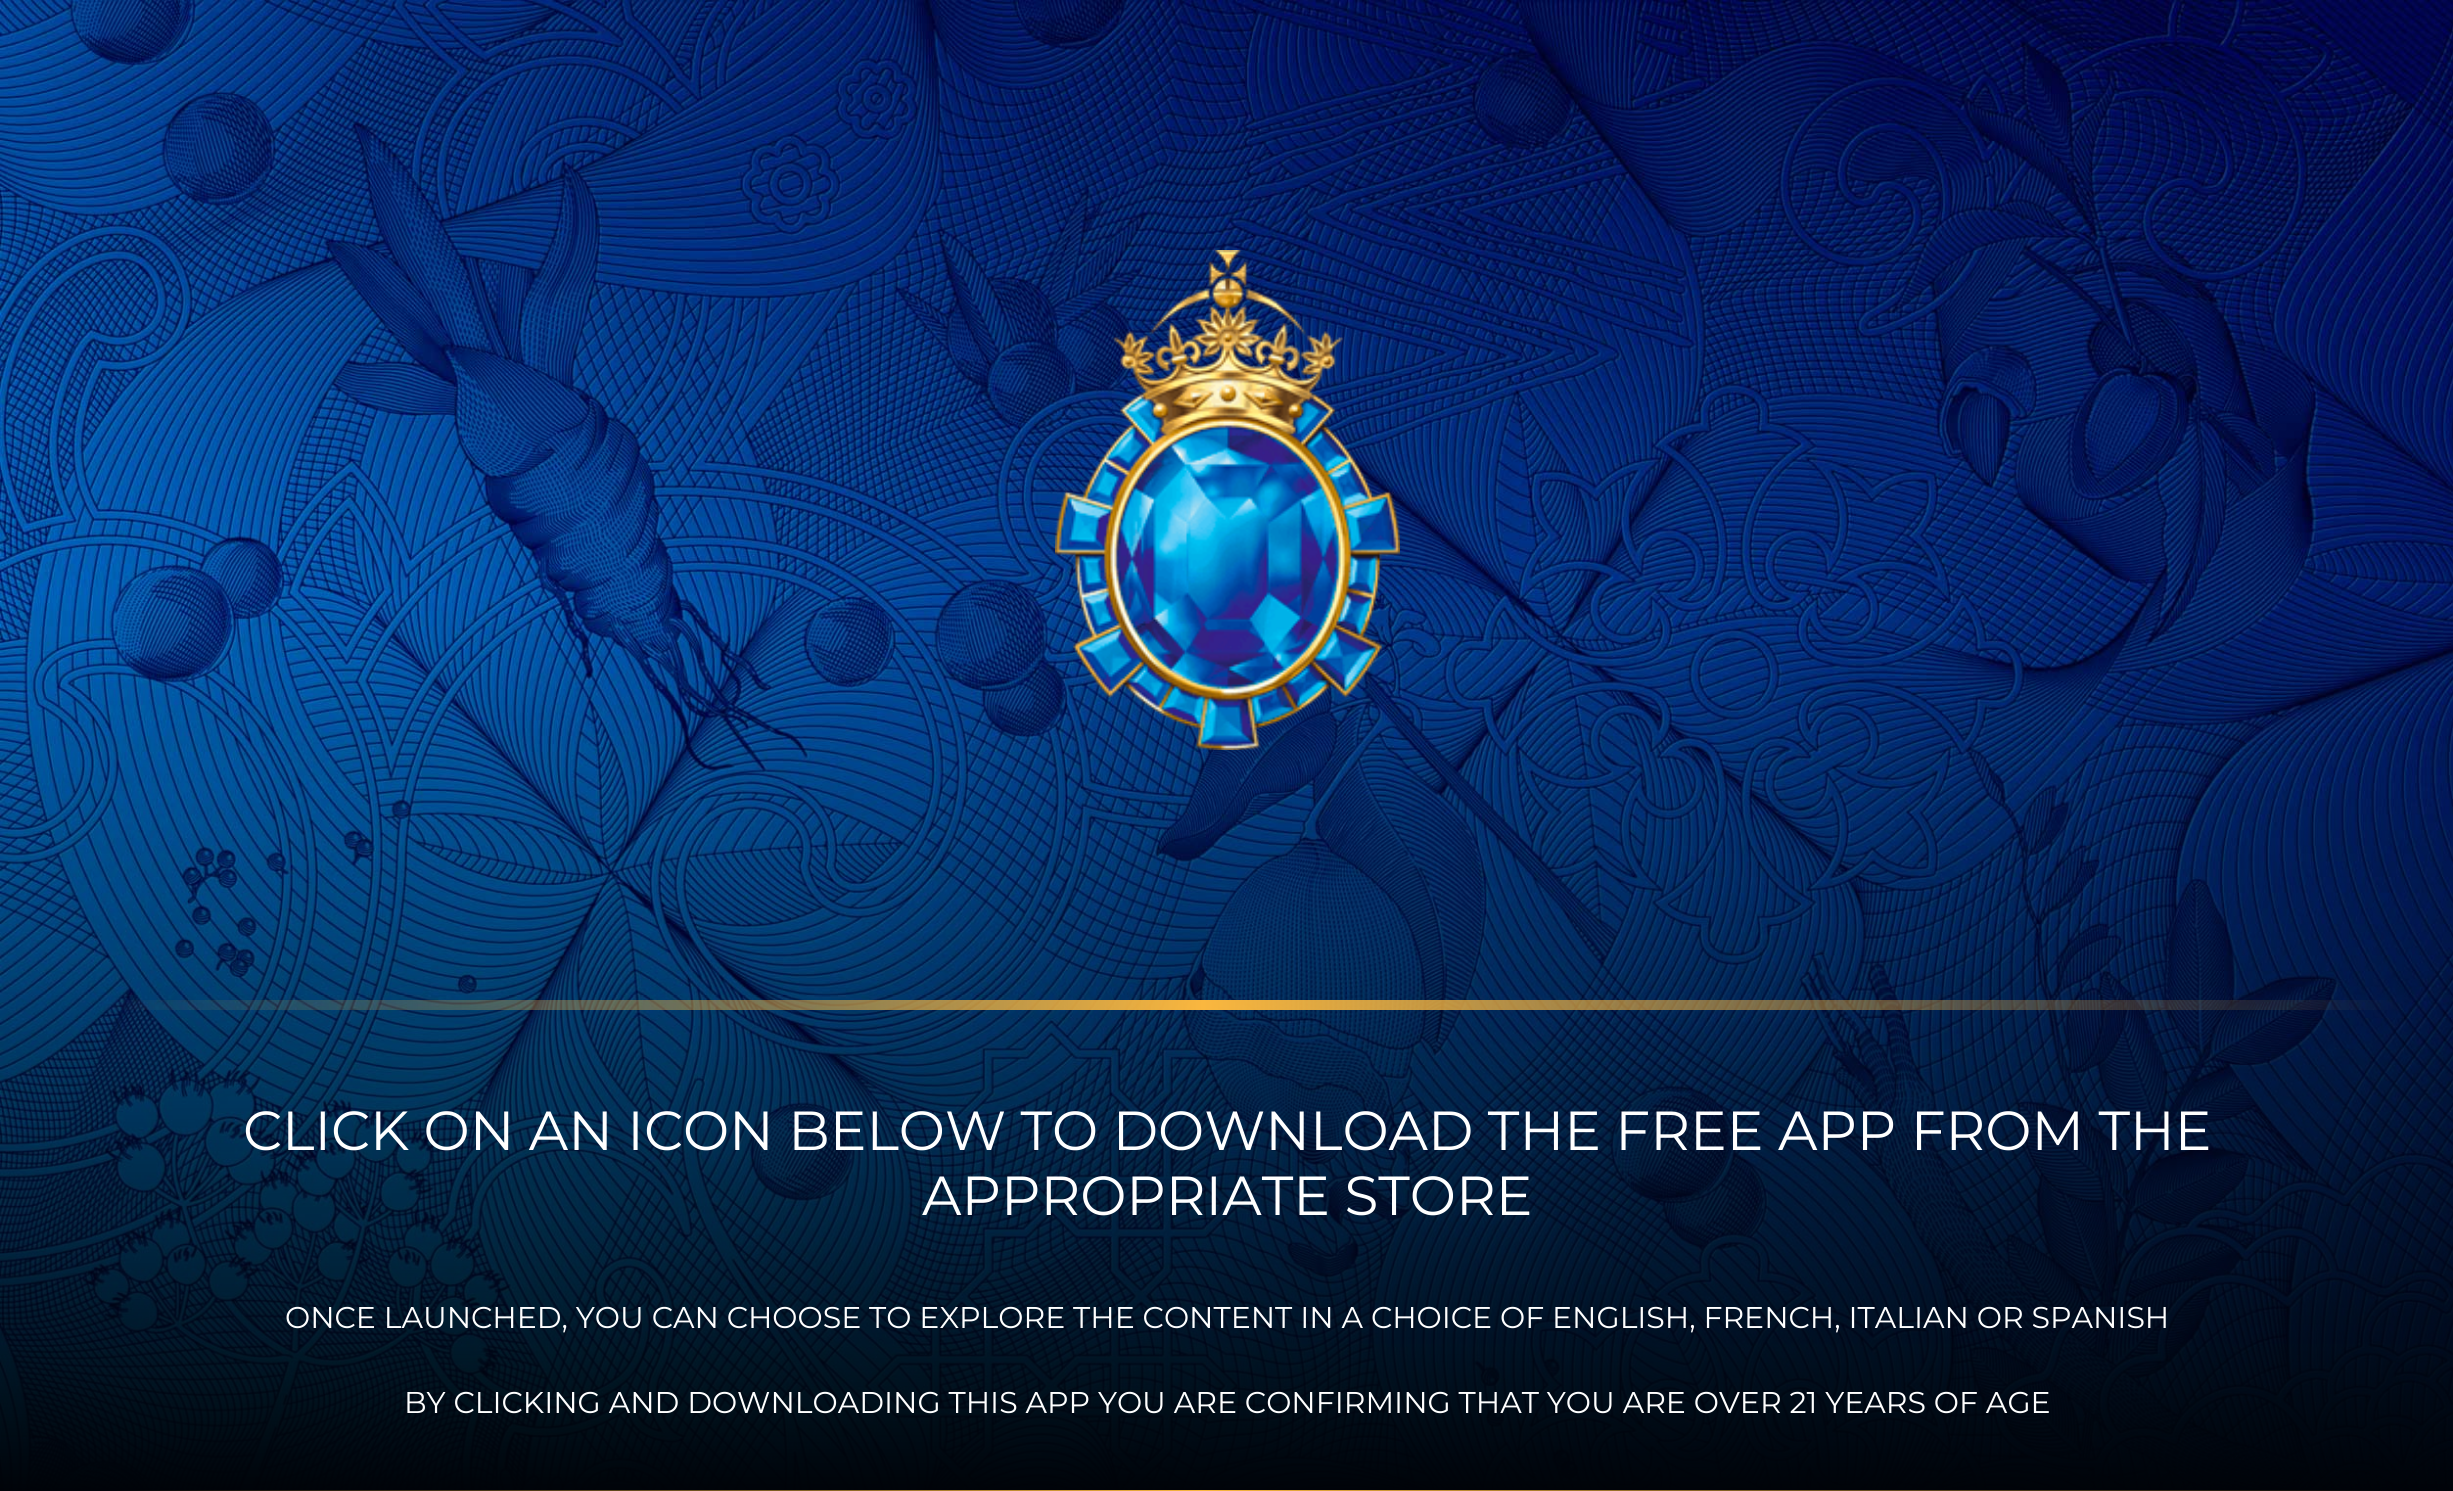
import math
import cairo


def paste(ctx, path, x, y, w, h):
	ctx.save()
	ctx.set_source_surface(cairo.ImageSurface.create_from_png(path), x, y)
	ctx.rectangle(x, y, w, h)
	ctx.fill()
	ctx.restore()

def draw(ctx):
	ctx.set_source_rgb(1, 1, 1)
	ctx.paint()
	paste(ctx, 'media/1.png', 0, 0, 2453, 1490)
	paste(ctx, 'media/2.png', 1055, 250, 345, 500)
	ctx.select_font_face('Montserrat')
	ctx.set_font_size(55)
	ctx.set_source_rgb(1, 1, 1)
	ctx.move_to(243, 1150)
	ctx.show_text('CLICK ON AN ICON BELOW TO DOWNLOAD THE FREE APP FROM THE')
	ctx.move_to(922, 1215)
	ctx.show_text('APPROPRIATE STORE')
	ctx.set_font_size(30)
	ctx.move_to(285, 1328)
	ctx.show_text('ONCE LAUNCHED, YOU CAN CHOOSE TO EXPLORE THE CONTENT IN A CHOICE OF ENGLISH, FRENCH, ITALIAN OR SPANISH')
	ctx.move_to(404, 1413)
	ctx.show_text('BY CLICKING AND DOWNLOADING THIS APP YOU ARE CONFIRMING THAT YOU ARE OVER 21 YEARS OF AGE')
	gradient = cairo.LinearGradient(0, 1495, 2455, 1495)
	gradient.add_color_stop_rgba(0.04, 0, 0.012, 0.035, 1)
	gradient.add_color_stop_rgba(0.33, 0.522, 0.388, 0.145, 1)
	gradient.add_color_stop_rgba(0.49, 0.98, 0.718, 0.247, 1)
	gradient.add_color_stop_rgba(0.66, 0.6, 0.443, 0.165, 1)
	gradient.add_color_stop_rgba(0.98, 0, 0.012, 0.035, 1)
	ctx.set_source(gradient)
	ctx.rectangle(0, 1490, 2453, 1)
	ctx.fill()


surface = cairo.ImageSurface(cairo.FORMAT_RGB24, 2453, 1491)
ctx = cairo.Context(surface)
options = cairo.FontOptions()
options.set_hint_metrics(cairo.HINT_METRICS_OFF)
options.set_hint_style(cairo.HINT_STYLE_NONE)
ctx.set_font_options(options)
ctx.set_miter_limit(4)
draw(ctx)
surface.write_to_png('image.png')
